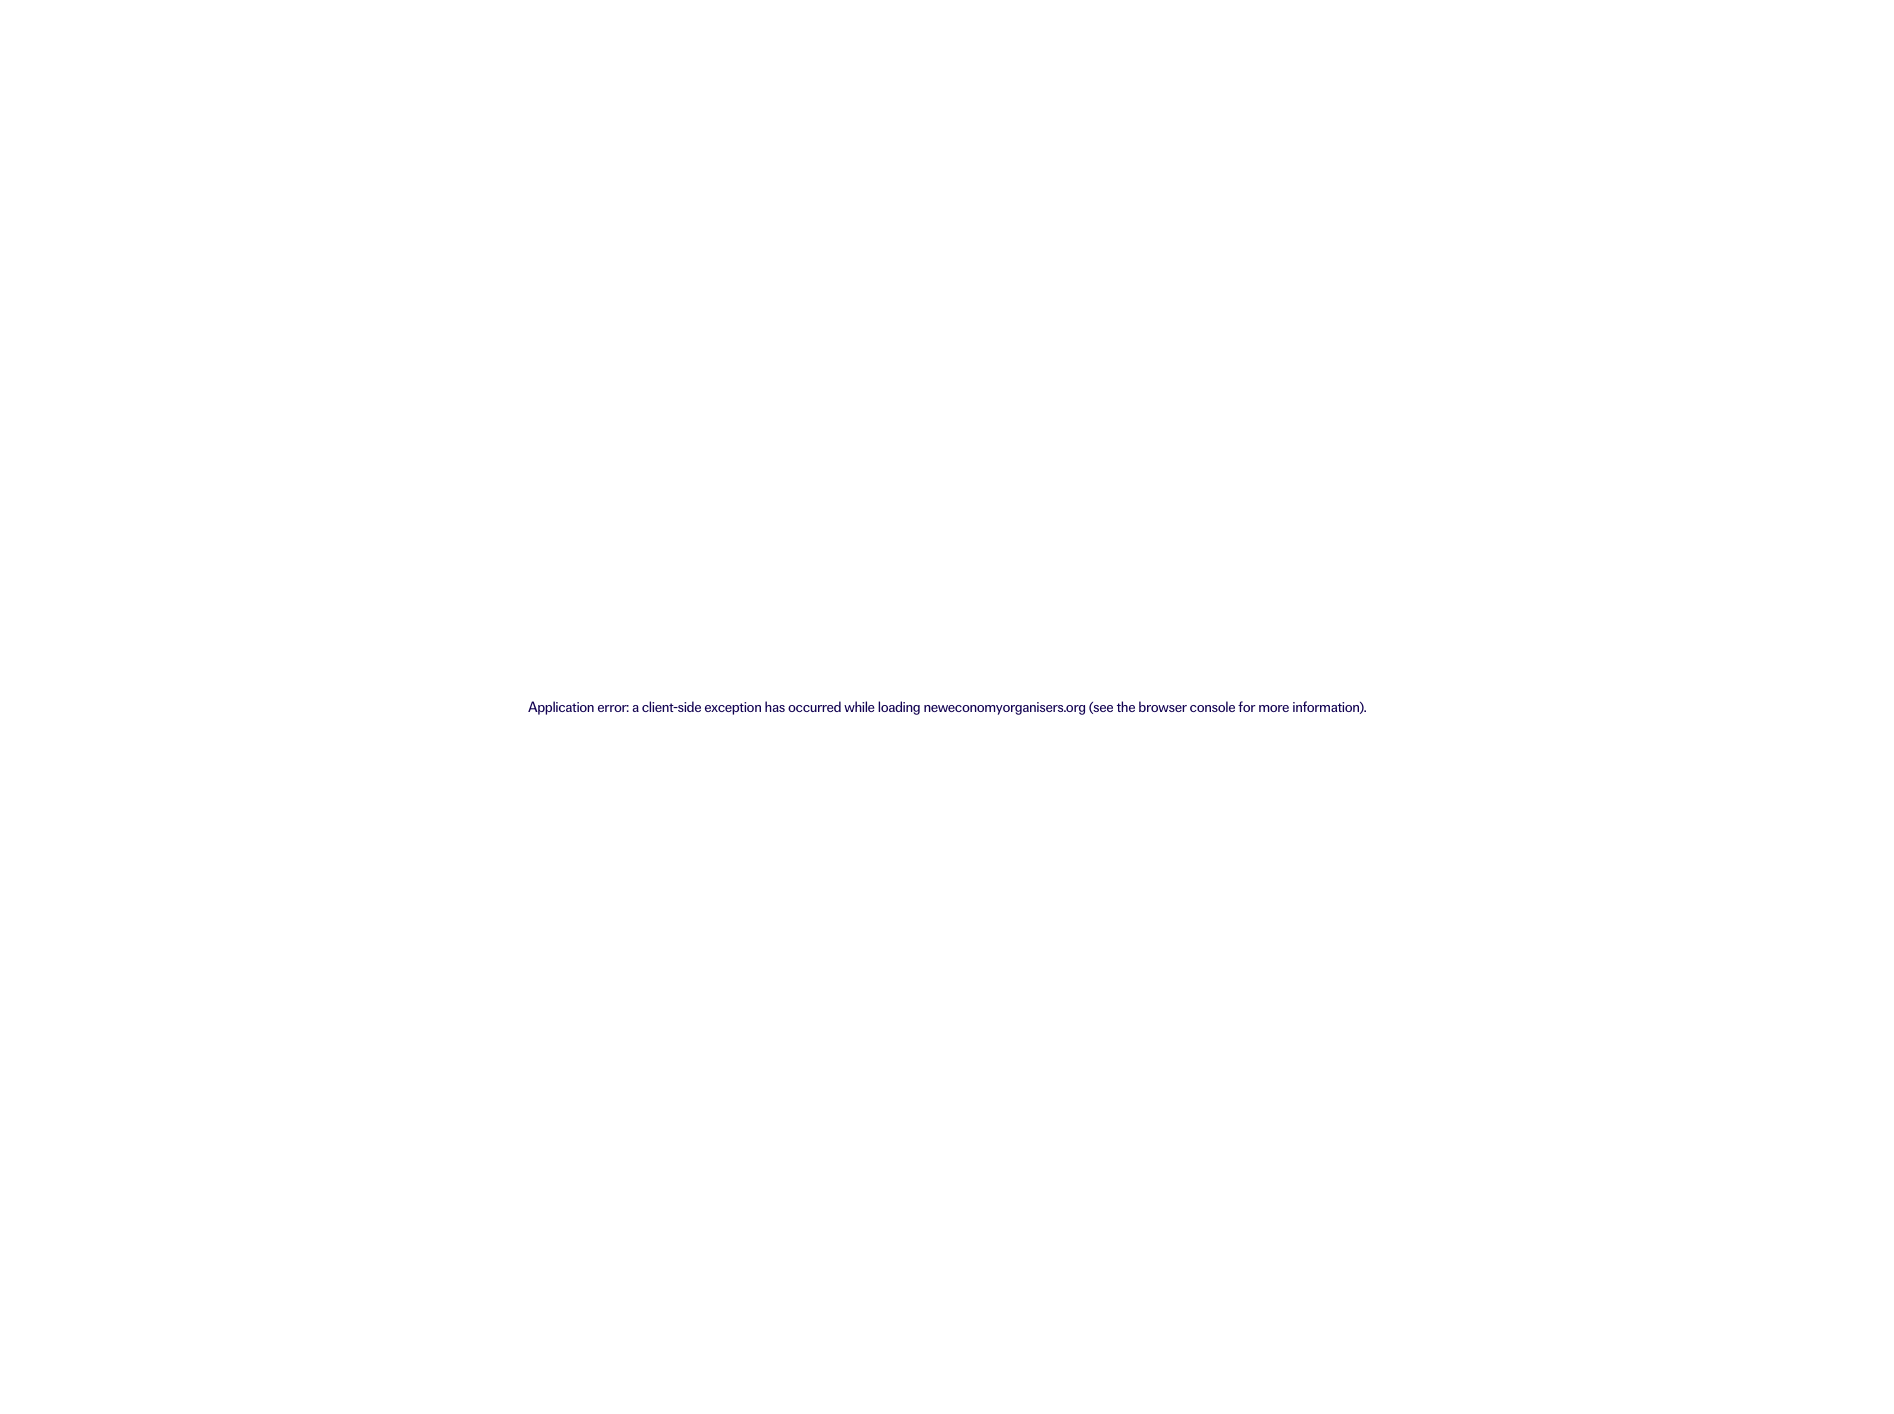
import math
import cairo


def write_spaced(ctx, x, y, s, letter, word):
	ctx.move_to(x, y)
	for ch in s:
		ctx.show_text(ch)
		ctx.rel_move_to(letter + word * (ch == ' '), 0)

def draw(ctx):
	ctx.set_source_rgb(1, 1, 1)
	ctx.paint()
	ctx.select_font_face('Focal')
	ctx.set_font_size(14)
	ctx.set_source_rgb(0.075, 0.012, 0.322)
	write_spaced(ctx, 528, 712, 'Application error: a client-side exception has occurred while loading neweconomyorganisers.org (see the browser console for more information).', -0.42, 0)


surface = cairo.ImageSurface(cairo.FORMAT_RGB24, 1894, 1414)
ctx = cairo.Context(surface)
options = cairo.FontOptions()
options.set_hint_metrics(cairo.HINT_METRICS_OFF)
options.set_hint_style(cairo.HINT_STYLE_NONE)
ctx.set_font_options(options)
ctx.set_miter_limit(4)
draw(ctx)
surface.write_to_png('image.png')
